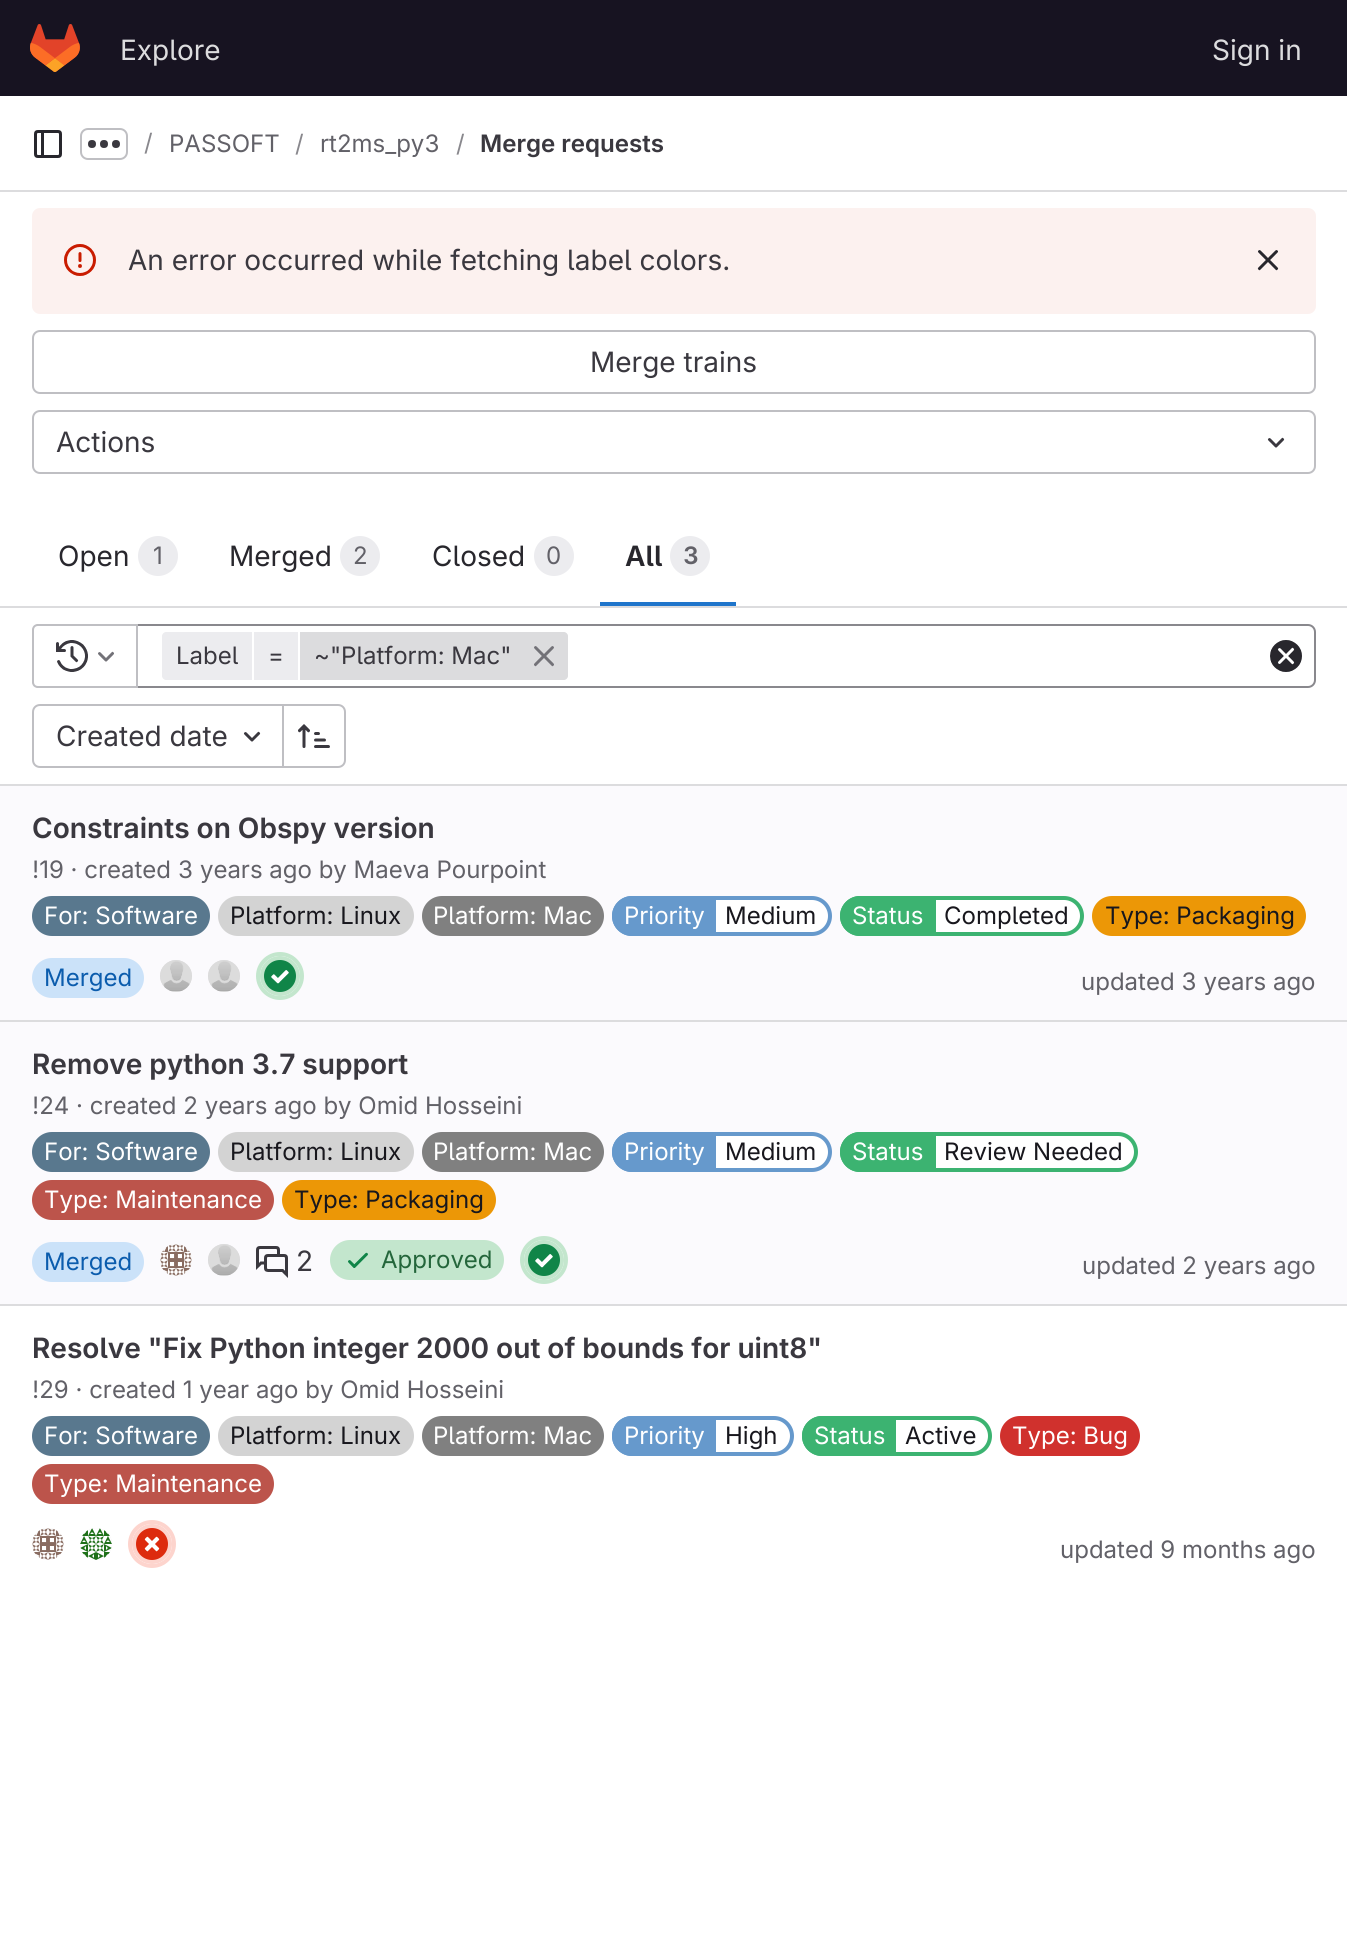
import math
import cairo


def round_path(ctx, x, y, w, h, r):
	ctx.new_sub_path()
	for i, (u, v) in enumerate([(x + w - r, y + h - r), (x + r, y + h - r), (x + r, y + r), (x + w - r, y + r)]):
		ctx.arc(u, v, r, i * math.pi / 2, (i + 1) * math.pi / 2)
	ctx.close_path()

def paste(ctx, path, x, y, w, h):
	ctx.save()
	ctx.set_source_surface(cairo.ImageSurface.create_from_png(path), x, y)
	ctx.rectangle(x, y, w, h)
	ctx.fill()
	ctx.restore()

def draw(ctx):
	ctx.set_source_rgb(1, 1, 1)
	ctx.paint()
	ctx.set_source_rgb(0.09, 0.075, 0.129)
	ctx.rectangle(0, 0, 1347, 96)
	ctx.fill()
	paste(ctx, 'media/1.png', 30, 24, 50, 48)
	ctx.select_font_face('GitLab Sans')
	ctx.set_font_size(28)
	ctx.set_source_rgb(0.863, 0.863, 0.871)
	ctx.move_to(120, 60)
	ctx.show_text('Explore')
	ctx.move_to(1212, 60)
	ctx.show_text('Sign in')
	ctx.rectangle(0, 190, 1347, 2)
	ctx.fill()
	paste(ctx, 'media/2.png', 34, 130, 28, 28)
	round_path(ctx, 81, 129, 46, 30, 7)
	ctx.set_source_rgb(0.749, 0.749, 0.765)
	ctx.stroke()
	paste(ctx, 'media/3.png', 88, 140, 32, 8)
	ctx.set_font_size(24)
	ctx.set_source_rgb(0.537, 0.533, 0.553)
	ctx.move_to(144, 151)
	ctx.show_text('/')
	ctx.set_source_rgb(0.384, 0.38, 0.408)
	ctx.move_to(169, 152)
	ctx.show_text('PASSOFT')
	ctx.set_source_rgb(0.537, 0.533, 0.553)
	ctx.move_to(295, 152)
	ctx.show_text('/')
	ctx.set_source_rgb(0.384, 0.38, 0.408)
	ctx.move_to(320, 152)
	ctx.show_text('rt2ms_py3')
	ctx.set_source_rgb(0.537, 0.533, 0.553)
	ctx.move_to(456, 152)
	ctx.show_text('/')
	ctx.select_font_face('GitLab Sans SemiBold')
	ctx.set_source_rgb(0.227, 0.22, 0.247)
	ctx.move_to(480, 152)
	ctx.show_text('Merge requests')
	ctx.set_source_rgb(0.988, 0.945, 0.937)
	round_path(ctx, 32, 208, 1284, 106, 8)
	ctx.fill()
	paste(ctx, 'media/4.png', 64, 244, 32, 32)
	ctx.select_font_face('GitLab Sans')
	ctx.set_font_size(28)
	ctx.set_source_rgb(0.227, 0.22, 0.247)
	ctx.move_to(128, 270)
	ctx.show_text('An error occurred while fetching label colors.')
	paste(ctx, 'media/5.png', 1257, 250, 22, 21)
	round_path(ctx, 33, 331, 1282, 62, 7)
	ctx.set_source_rgb(0.749, 0.749, 0.765)
	ctx.stroke()
	ctx.set_source_rgb(0.227, 0.22, 0.247)
	ctx.move_to(590, 372)
	ctx.show_text('Merge trains')
	round_path(ctx, 33, 411, 1282, 62, 7)
	ctx.set_source_rgb(0.749, 0.749, 0.765)
	ctx.stroke()
	ctx.set_source_rgb(0.227, 0.22, 0.247)
	ctx.move_to(56, 452)
	ctx.show_text('Actions')
	paste(ctx, 'media/6.png', 1267, 437, 18, 11)
	ctx.set_source_rgb(0.157, 0.153, 0.176)
	ctx.move_to(58, 566)
	ctx.show_text('Open')
	ctx.set_source_rgb(0.925, 0.925, 0.937)
	ctx.new_path()
	ctx.arc(158, 556, 20, 0, 2 * math.pi)
	ctx.fill()
	ctx.set_font_size(24)
	ctx.set_source_rgb(0.384, 0.38, 0.408)
	ctx.move_to(153, 564)
	ctx.show_text('1')
	ctx.set_font_size(28)
	ctx.set_source_rgb(0.157, 0.153, 0.176)
	ctx.move_to(229, 566)
	ctx.show_text('Merged')
	ctx.set_source_rgb(0.925, 0.925, 0.937)
	ctx.new_path()
	ctx.arc(360, 556, 20, 0, 2 * math.pi)
	ctx.fill()
	ctx.set_font_size(24)
	ctx.set_source_rgb(0.384, 0.38, 0.408)
	ctx.move_to(353, 564)
	ctx.show_text('2')
	ctx.set_font_size(28)
	ctx.set_source_rgb(0.157, 0.153, 0.176)
	ctx.move_to(432, 566)
	ctx.show_text('Closed')
	ctx.set_source_rgb(0.925, 0.925, 0.937)
	ctx.new_path()
	ctx.arc(554, 556, 20, 0, 2 * math.pi)
	ctx.fill()
	ctx.set_font_size(24)
	ctx.set_source_rgb(0.384, 0.38, 0.408)
	ctx.move_to(546, 564)
	ctx.show_text('0')
	ctx.select_font_face('GitLab Sans SemiBold')
	ctx.set_font_size(28)
	ctx.set_source_rgb(0.157, 0.153, 0.176)
	ctx.move_to(625, 566)
	ctx.show_text('All')
	ctx.set_source_rgb(0.925, 0.925, 0.937)
	ctx.new_path()
	ctx.arc(690, 556, 20, 0, 2 * math.pi)
	ctx.fill()
	ctx.set_font_size(24)
	ctx.set_source_rgb(0.384, 0.38, 0.408)
	ctx.move_to(683, 564)
	ctx.show_text('3')
	ctx.set_source_rgb(0.122, 0.459, 0.796)
	ctx.rectangle(600, 602, 136, 4)
	ctx.fill()
	ctx.set_source_rgb(0.863, 0.863, 0.871)
	ctx.rectangle(0, 606, 1347, 2)
	ctx.rectangle(0, 784, 1347, 2)
	ctx.fill()
	round_path(ctx, 33, 625, 1282, 62, 7)
	ctx.set_source_rgb(0.537, 0.533, 0.553)
	ctx.stroke()
	ctx.set_source_rgb(1, 1, 1)
	ctx.new_path()
	ctx.move_to(38, 625)
	ctx.line_to(137, 625)
	ctx.line_to(137, 687)
	ctx.line_to(38, 687)
	ctx.curve_to(35, 687, 33, 685, 33, 682)
	ctx.line_to(33, 630)
	ctx.curve_to(33, 627, 35, 625, 38, 625)
	ctx.close_path()
	ctx.fill_preserve()
	ctx.set_source_rgb(0.749, 0.749, 0.765)
	ctx.stroke()
	paste(ctx, 'media/7.png', 56, 640, 32, 32)
	paste(ctx, 'media/8.png', 98, 651, 16, 11)
	ctx.set_source_rgb(0.925, 0.925, 0.937)
	ctx.new_path()
	ctx.move_to(166, 632)
	ctx.line_to(252, 632)
	ctx.line_to(252, 680)
	ctx.line_to(166, 680)
	ctx.curve_to(164, 680, 162, 678, 162, 676)
	ctx.line_to(162, 636)
	ctx.curve_to(162, 634, 164, 632, 166, 632)
	ctx.close_path()
	ctx.fill()
	ctx.select_font_face('GitLab Sans')
	ctx.set_source_rgb(0.227, 0.22, 0.247)
	ctx.move_to(176, 664)
	ctx.show_text('Label')
	ctx.set_source_rgb(0.925, 0.925, 0.937)
	ctx.rectangle(254, 632, 44, 48)
	ctx.fill()
	ctx.set_source_rgb(0.227, 0.22, 0.247)
	ctx.move_to(268, 664)
	ctx.show_text('=')
	ctx.set_source_rgb(0.863, 0.863, 0.871)
	ctx.new_path()
	ctx.move_to(300, 632)
	ctx.line_to(564, 632)
	ctx.curve_to(566, 632, 568, 634, 568, 636)
	ctx.line_to(568, 676)
	ctx.curve_to(568, 678, 566, 680, 564, 680)
	ctx.line_to(300, 680)
	ctx.close_path()
	ctx.fill()
	ctx.set_source_rgb(0.227, 0.22, 0.247)
	ctx.move_to(314, 664)
	ctx.show_text('~"Platform: Mac"')
	paste(ctx, 'media/9.png', 534, 646, 20, 21)
	paste(ctx, 'media/10.png', 1270, 640, 32, 32)
	ctx.new_path()
	ctx.move_to(40, 705)
	ctx.line_to(283, 705)
	ctx.line_to(283, 767)
	ctx.line_to(40, 767)
	ctx.curve_to(36, 767, 33, 764, 33, 760)
	ctx.line_to(33, 712)
	ctx.curve_to(33, 708, 36, 705, 40, 705)
	ctx.close_path()
	ctx.set_source_rgb(0.749, 0.749, 0.765)
	ctx.stroke()
	ctx.set_font_size(28)
	ctx.set_source_rgb(0.227, 0.22, 0.247)
	ctx.move_to(56, 746)
	ctx.show_text('Created date')
	paste(ctx, 'media/11.png', 243, 731, 18, 11)
	ctx.set_source_rgb(1, 1, 1)
	ctx.new_path()
	ctx.move_to(283, 705)
	ctx.line_to(338, 705)
	ctx.curve_to(342, 705, 345, 708, 345, 712)
	ctx.line_to(345, 760)
	ctx.curve_to(345, 764, 342, 767, 338, 767)
	ctx.line_to(283, 767)
	ctx.close_path()
	ctx.fill_preserve()
	ctx.set_source_rgb(0.749, 0.749, 0.765)
	ctx.stroke()
	paste(ctx, 'media/12.png', 298, 724, 32, 24)
	ctx.set_source_rgb(0.984, 0.98, 0.992)
	ctx.rectangle(0, 786, 1347, 234)
	ctx.fill()
	ctx.set_source_rgb(0.863, 0.863, 0.871)
	ctx.rectangle(0, 1020, 1347, 2)
	ctx.fill()
	ctx.select_font_face('GitLab Sans SemiBold')
	ctx.set_source_rgb(0.227, 0.22, 0.247)
	ctx.move_to(32, 838)
	ctx.show_text('Constraints on Obspy version')
	ctx.select_font_face('GitLab Sans')
	ctx.set_font_size(24)
	ctx.set_source_rgb(0.384, 0.38, 0.408)
	ctx.move_to(32, 878)
	ctx.show_text('!19 · created 3 years ago by Maeva Pourpoint')
	ctx.set_source_rgb(0.349, 0.471, 0.557)
	round_path(ctx, 32, 896, 178, 40, 20)
	ctx.fill()
	ctx.set_source_rgb(1, 1, 1)
	ctx.move_to(44, 924)
	ctx.show_text('For: Software')
	ctx.set_source_rgb(0.827, 0.827, 0.827)
	round_path(ctx, 218, 896, 196, 40, 20)
	ctx.fill()
	ctx.set_source_rgb(0.094, 0.09, 0.114)
	ctx.move_to(230, 924)
	ctx.show_text('Platform: Linux')
	ctx.set_source_rgb(0.502, 0.502, 0.502)
	round_path(ctx, 422, 896, 182, 40, 20)
	ctx.fill()
	ctx.set_source_rgb(1, 1, 1)
	ctx.move_to(433, 924)
	ctx.show_text('Platform: Mac')
	round_path(ctx, 614, 898, 216, 36, 18)
	ctx.fill_preserve()
	ctx.set_source_rgb(0.4, 0.6, 0.8)
	ctx.set_line_width(4)
	ctx.stroke()
	ctx.new_path()
	ctx.move_to(632, 896)
	ctx.line_to(716, 896)
	ctx.line_to(716, 936)
	ctx.line_to(632, 936)
	ctx.curve_to(621, 936, 612, 927, 612, 916)
	ctx.curve_to(612, 905, 621, 896, 632, 896)
	ctx.close_path()
	ctx.fill()
	ctx.set_source_rgb(1, 1, 1)
	ctx.move_to(624, 924)
	ctx.show_text('Priority')
	ctx.set_source_rgb(0.094, 0.09, 0.114)
	ctx.move_to(725, 924)
	ctx.show_text('Medium')
	ctx.set_source_rgb(1, 1, 1)
	round_path(ctx, 842, 898, 240, 36, 18)
	ctx.fill_preserve()
	ctx.set_source_rgb(0.235, 0.702, 0.443)
	ctx.stroke()
	ctx.new_path()
	ctx.move_to(860, 896)
	ctx.line_to(936, 896)
	ctx.line_to(936, 936)
	ctx.line_to(860, 936)
	ctx.curve_to(849, 936, 840, 927, 840, 916)
	ctx.curve_to(840, 905, 849, 896, 860, 896)
	ctx.close_path()
	ctx.fill()
	ctx.set_source_rgb(1, 1, 1)
	ctx.move_to(852, 924)
	ctx.show_text('Status')
	ctx.set_source_rgb(0.094, 0.09, 0.114)
	ctx.move_to(944, 924)
	ctx.show_text('Completed')
	ctx.set_source_rgb(0.925, 0.592, 0.024)
	round_path(ctx, 1092, 896, 214, 40, 20)
	ctx.fill()
	ctx.set_source_rgb(0.094, 0.09, 0.114)
	ctx.move_to(1105, 924)
	ctx.show_text('Type: Packaging')
	ctx.set_source_rgb(0.796, 0.886, 0.976)
	round_path(ctx, 32, 958, 112, 40, 20)
	ctx.fill()
	ctx.set_source_rgb(0.043, 0.361, 0.678)
	ctx.move_to(44, 986)
	ctx.show_text('Merged')
	ctx.new_path()
	ctx.arc(176, 976, 15, 0, 2 * math.pi)
	ctx.set_source_rgb(0.906, 0.902, 0.914)
	ctx.set_line_width(2)
	ctx.stroke()
	paste(ctx, 'media/13.png', 160, 960, 32, 32)
	ctx.arc(224, 976, 15, 0, 2 * math.pi)
	ctx.stroke()
	paste(ctx, 'media/13.png', 208, 960, 32, 32)
	ctx.arc(280, 976, 22, 0, 2 * math.pi)
	ctx.set_source_rgb(0.765, 0.902, 0.804)
	ctx.set_line_width(4)
	ctx.stroke()
	ctx.set_source_rgb(0.063, 0.522, 0.282)
	ctx.arc(280, 976, 18, 0, 2 * math.pi)
	ctx.fill_preserve()
	ctx.set_source_rgb(0.765, 0.902, 0.804)
	ctx.stroke()
	paste(ctx, 'media/14.png', 271, 970, 18, 14)
	ctx.set_source_rgb(0.384, 0.38, 0.408)
	ctx.move_to(1081, 990)
	ctx.show_text('updated 3 years ago')
	ctx.set_source_rgb(0.984, 0.98, 0.992)
	ctx.rectangle(0, 1022, 1347, 282)
	ctx.fill()
	ctx.set_source_rgb(0.863, 0.863, 0.871)
	ctx.rectangle(0, 1304, 1347, 2)
	ctx.fill()
	ctx.select_font_face('GitLab Sans SemiBold')
	ctx.set_font_size(28)
	ctx.set_source_rgb(0.227, 0.22, 0.247)
	ctx.move_to(32, 1074)
	ctx.show_text('Remove python 3.7 support')
	ctx.select_font_face('GitLab Sans')
	ctx.set_font_size(24)
	ctx.set_source_rgb(0.384, 0.38, 0.408)
	ctx.move_to(32, 1114)
	ctx.show_text('!24 · created 2 years ago by Omid Hosseini')
	ctx.set_source_rgb(0.349, 0.471, 0.557)
	round_path(ctx, 32, 1132, 178, 40, 20)
	ctx.fill()
	ctx.set_source_rgb(1, 1, 1)
	ctx.move_to(44, 1160)
	ctx.show_text('For: Software')
	ctx.set_source_rgb(0.827, 0.827, 0.827)
	round_path(ctx, 218, 1132, 196, 40, 20)
	ctx.fill()
	ctx.set_source_rgb(0.094, 0.09, 0.114)
	ctx.move_to(230, 1160)
	ctx.show_text('Platform: Linux')
	ctx.set_source_rgb(0.502, 0.502, 0.502)
	round_path(ctx, 422, 1132, 182, 40, 20)
	ctx.fill()
	ctx.set_source_rgb(1, 1, 1)
	ctx.move_to(433, 1160)
	ctx.show_text('Platform: Mac')
	round_path(ctx, 614, 1134, 216, 36, 18)
	ctx.fill_preserve()
	ctx.set_source_rgb(0.4, 0.6, 0.8)
	ctx.stroke()
	ctx.new_path()
	ctx.move_to(632, 1132)
	ctx.line_to(716, 1132)
	ctx.line_to(716, 1172)
	ctx.line_to(632, 1172)
	ctx.curve_to(621, 1172, 612, 1163, 612, 1152)
	ctx.curve_to(612, 1141, 621, 1132, 632, 1132)
	ctx.close_path()
	ctx.fill()
	ctx.set_source_rgb(1, 1, 1)
	ctx.move_to(624, 1160)
	ctx.show_text('Priority')
	ctx.set_source_rgb(0.094, 0.09, 0.114)
	ctx.move_to(725, 1160)
	ctx.show_text('Medium')
	ctx.set_source_rgb(1, 1, 1)
	round_path(ctx, 842, 1134, 294, 36, 18)
	ctx.fill_preserve()
	ctx.set_source_rgb(0.235, 0.702, 0.443)
	ctx.stroke()
	ctx.new_path()
	ctx.move_to(860, 1132)
	ctx.line_to(936, 1132)
	ctx.line_to(936, 1172)
	ctx.line_to(860, 1172)
	ctx.curve_to(849, 1172, 840, 1163, 840, 1152)
	ctx.curve_to(840, 1141, 849, 1132, 860, 1132)
	ctx.close_path()
	ctx.fill()
	ctx.set_source_rgb(1, 1, 1)
	ctx.move_to(852, 1160)
	ctx.show_text('Status')
	ctx.set_source_rgb(0.094, 0.09, 0.114)
	ctx.move_to(944, 1160)
	ctx.show_text('Review Needed')
	ctx.set_source_rgb(0.737, 0.329, 0.294)
	round_path(ctx, 32, 1180, 242, 40, 20)
	ctx.fill()
	ctx.set_source_rgb(1, 1, 1)
	ctx.move_to(44, 1208)
	ctx.show_text('Type: Maintenance')
	ctx.set_source_rgb(0.925, 0.592, 0.024)
	round_path(ctx, 282, 1180, 214, 40, 20)
	ctx.fill()
	ctx.set_source_rgb(0.094, 0.09, 0.114)
	ctx.move_to(294, 1208)
	ctx.show_text('Type: Packaging')
	ctx.set_source_rgb(0.796, 0.886, 0.976)
	round_path(ctx, 32, 1242, 112, 40, 20)
	ctx.fill()
	ctx.set_source_rgb(0.043, 0.361, 0.678)
	ctx.move_to(44, 1270)
	ctx.show_text('Merged')
	ctx.new_path()
	ctx.arc(176, 1260, 15, 0, 2 * math.pi)
	ctx.set_source_rgb(0.906, 0.902, 0.914)
	ctx.set_line_width(2)
	ctx.stroke()
	paste(ctx, 'media/15.png', 160, 1244, 32, 32)
	ctx.arc(224, 1260, 15, 0, 2 * math.pi)
	ctx.stroke()
	paste(ctx, 'media/16.png', 208, 1244, 32, 32)
	paste(ctx, 'media/17.png', 256, 1246, 32, 32)
	ctx.set_font_size(28)
	ctx.set_source_rgb(0.227, 0.22, 0.247)
	ctx.move_to(296, 1271)
	ctx.show_text('2')
	ctx.set_source_rgb(0.765, 0.902, 0.804)
	round_path(ctx, 330, 1240, 174, 40, 20)
	ctx.fill()
	paste(ctx, 'media/18.png', 348, 1252, 20, 16)
	ctx.set_font_size(24)
	ctx.set_source_rgb(0.141, 0.4, 0.231)
	ctx.move_to(381, 1268)
	ctx.show_text('Approved')
	ctx.new_path()
	ctx.arc(544, 1260, 22, 0, 2 * math.pi)
	ctx.set_source_rgb(0.765, 0.902, 0.804)
	ctx.set_line_width(4)
	ctx.stroke()
	ctx.set_source_rgb(0.063, 0.522, 0.282)
	ctx.arc(544, 1260, 18, 0, 2 * math.pi)
	ctx.fill_preserve()
	ctx.set_source_rgb(0.765, 0.902, 0.804)
	ctx.stroke()
	paste(ctx, 'media/14.png', 535, 1254, 18, 14)
	ctx.set_source_rgb(0.384, 0.38, 0.408)
	ctx.move_to(1082, 1274)
	ctx.show_text('updated 2 years ago')
	ctx.select_font_face('GitLab Sans SemiBold')
	ctx.set_font_size(28)
	ctx.set_source_rgb(0.227, 0.22, 0.247)
	ctx.move_to(32, 1358)
	ctx.show_text('Resolve "Fix Python integer 2000 out of bounds for uint8"')
	ctx.select_font_face('GitLab Sans')
	ctx.set_font_size(24)
	ctx.set_source_rgb(0.384, 0.38, 0.408)
	ctx.move_to(32, 1398)
	ctx.show_text('!29 · created 1 year ago by Omid Hosseini')
	ctx.set_source_rgb(0.349, 0.471, 0.557)
	round_path(ctx, 32, 1416, 178, 40, 20)
	ctx.fill()
	ctx.set_source_rgb(1, 1, 1)
	ctx.move_to(44, 1444)
	ctx.show_text('For: Software')
	ctx.set_source_rgb(0.827, 0.827, 0.827)
	round_path(ctx, 218, 1416, 196, 40, 20)
	ctx.fill()
	ctx.set_source_rgb(0.094, 0.09, 0.114)
	ctx.move_to(230, 1444)
	ctx.show_text('Platform: Linux')
	ctx.set_source_rgb(0.502, 0.502, 0.502)
	round_path(ctx, 422, 1416, 182, 40, 20)
	ctx.fill()
	ctx.set_source_rgb(1, 1, 1)
	ctx.move_to(433, 1444)
	ctx.show_text('Platform: Mac')
	round_path(ctx, 614, 1418, 178, 36, 18)
	ctx.set_source_rgb(0.4, 0.6, 0.8)
	ctx.stroke()
	ctx.new_path()
	ctx.move_to(632, 1416)
	ctx.line_to(716, 1416)
	ctx.line_to(716, 1456)
	ctx.line_to(632, 1456)
	ctx.curve_to(621, 1456, 612, 1447, 612, 1436)
	ctx.curve_to(612, 1425, 621, 1416, 632, 1416)
	ctx.close_path()
	ctx.fill()
	ctx.set_source_rgb(1, 1, 1)
	ctx.move_to(624, 1444)
	ctx.show_text('Priority')
	ctx.set_source_rgb(0.094, 0.09, 0.114)
	ctx.move_to(725, 1444)
	ctx.show_text('High')
	round_path(ctx, 804, 1418, 186, 36, 18)
	ctx.set_source_rgb(0.235, 0.702, 0.443)
	ctx.stroke()
	ctx.new_path()
	ctx.move_to(822, 1416)
	ctx.line_to(896, 1416)
	ctx.line_to(896, 1456)
	ctx.line_to(822, 1456)
	ctx.curve_to(811, 1456, 802, 1447, 802, 1436)
	ctx.curve_to(802, 1425, 811, 1416, 822, 1416)
	ctx.close_path()
	ctx.fill()
	ctx.set_source_rgb(1, 1, 1)
	ctx.move_to(814, 1444)
	ctx.show_text('Status')
	ctx.set_source_rgb(0.094, 0.09, 0.114)
	ctx.move_to(905, 1444)
	ctx.show_text('Active')
	ctx.set_source_rgb(0.816, 0.192, 0.176)
	round_path(ctx, 1000, 1416, 140, 40, 20)
	ctx.fill()
	ctx.set_source_rgb(1, 1, 1)
	ctx.move_to(1012, 1444)
	ctx.show_text('Type: Bug')
	ctx.set_source_rgb(0.737, 0.329, 0.294)
	round_path(ctx, 32, 1464, 242, 40, 20)
	ctx.fill()
	ctx.set_source_rgb(1, 1, 1)
	ctx.move_to(44, 1492)
	ctx.show_text('Type: Maintenance')
	ctx.new_path()
	ctx.arc(48, 1544, 15, 0, 2 * math.pi)
	ctx.set_source_rgb(0.91, 0.906, 0.914)
	ctx.set_line_width(2)
	ctx.stroke()
	paste(ctx, 'media/19.png', 32, 1528, 32, 32)
	ctx.arc(96, 1544, 15, 0, 2 * math.pi)
	ctx.stroke()
	paste(ctx, 'media/20.png', 80, 1528, 32, 32)
	ctx.arc(152, 1544, 22, 0, 2 * math.pi)
	ctx.set_source_rgb(0.992, 0.831, 0.804)
	ctx.set_line_width(4)
	ctx.stroke()
	ctx.set_source_rgb(0.867, 0.169, 0.055)
	ctx.arc(152, 1544, 18, 0, 2 * math.pi)
	ctx.fill_preserve()
	ctx.set_source_rgb(0.992, 0.831, 0.804)
	ctx.stroke()
	paste(ctx, 'media/21.png', 144, 1536, 16, 16)
	ctx.set_source_rgb(0.384, 0.38, 0.408)
	ctx.move_to(1060, 1558)
	ctx.show_text('updated 9 months ago')


surface = cairo.ImageSurface(cairo.FORMAT_RGB24, 1347, 1950)
ctx = cairo.Context(surface)
options = cairo.FontOptions()
options.set_hint_metrics(cairo.HINT_METRICS_OFF)
options.set_hint_style(cairo.HINT_STYLE_NONE)
ctx.set_font_options(options)
ctx.set_miter_limit(4)
draw(ctx)
surface.write_to_png('image.png')
